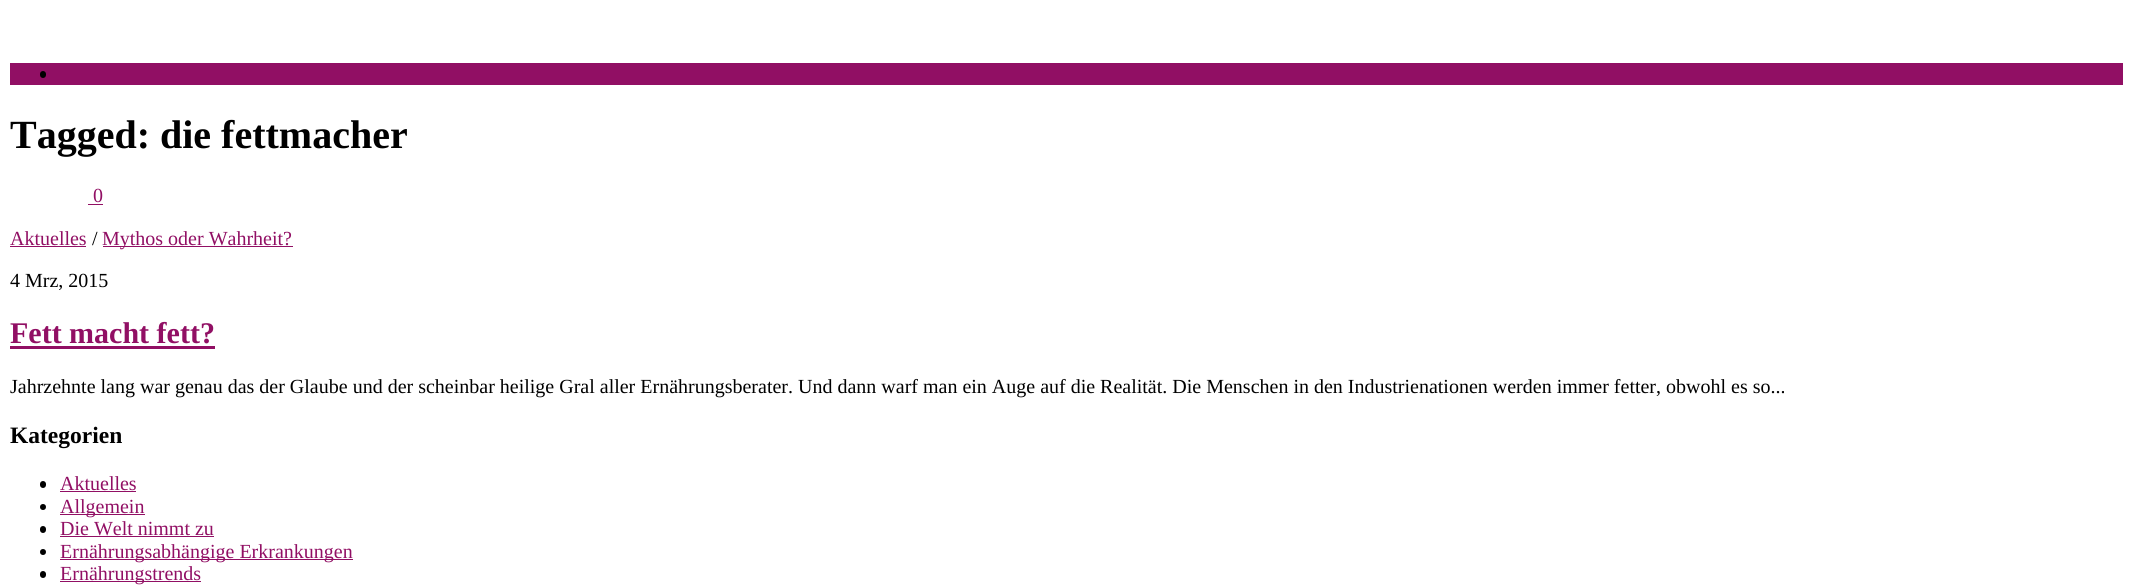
import math
import cairo


def round_path(ctx, x, y, w, h, r):
	ctx.new_sub_path()
	for i, (u, v) in enumerate([(x + w - r, y + h - r), (x + r, y + h - r), (x + r, y + r), (x + w - r, y + r)]):
		ctx.arc(u, v, r, i * math.pi / 2, (i + 1) * math.pi / 2)
	ctx.close_path()

def draw(ctx):
	ctx.set_source_rgb(1, 1, 1)
	ctx.paint()
	ctx.set_source_rgb(0.569, 0.059, 0.392)
	ctx.rectangle(10, 63, 2113, 22)
	ctx.fill()
	ctx.set_source_rgb(0, 0, 0)
	round_path(ctx, 40, 71, 6, 7, 3)
	ctx.fill()
	ctx.select_font_face('Liberation Serif', cairo.FONT_SLANT_NORMAL, cairo.FONT_WEIGHT_BOLD)
	ctx.set_font_size(40)
	ctx.move_to(10, 148)
	ctx.show_text('Tagged: die fettmacher')
	ctx.select_font_face('Liberation Serif')
	ctx.set_font_size(20)
	ctx.set_source_rgb(0.569, 0.059, 0.392)
	ctx.move_to(93, 202)
	ctx.show_text('0')
	ctx.rectangle(88, 204, 15, 1)
	ctx.fill()
	ctx.move_to(10, 245)
	ctx.show_text('Aktuelles')
	ctx.rectangle(10, 246, 76, 1)
	ctx.fill()
	ctx.set_source_rgb(0, 0, 0)
	ctx.move_to(92, 245)
	ctx.show_text('/')
	ctx.set_source_rgb(0.569, 0.059, 0.392)
	ctx.rectangle(103, 246, 190, 1)
	ctx.fill()
	ctx.move_to(102, 245)
	ctx.show_text('Mythos oder Wahrheit?')
	ctx.set_source_rgb(0, 0, 0)
	ctx.move_to(10, 287)
	ctx.show_text('4 Mrz, 2015')
	ctx.select_font_face('Liberation Serif', cairo.FONT_SLANT_NORMAL, cairo.FONT_WEIGHT_BOLD)
	ctx.set_font_size(30)
	ctx.set_source_rgb(0.569, 0.059, 0.392)
	ctx.move_to(10, 343)
	ctx.show_text('Fett macht fett?')
	ctx.rectangle(10, 346, 205, 3)
	ctx.fill()
	ctx.select_font_face('Liberation Serif')
	ctx.set_font_size(20)
	ctx.set_source_rgb(0, 0, 0)
	ctx.move_to(10, 393)
	ctx.show_text('Jahrzehnte lang war genau das der Glaube und der scheinbar heilige Gral aller Ernährungsberater. Und dann warf man ein Auge auf die Realität. Die Menschen in den Industrienationen werden immer fetter, obwohl es so...')
	ctx.select_font_face('Liberation Serif', cairo.FONT_SLANT_NORMAL, cairo.FONT_WEIGHT_BOLD)
	ctx.set_font_size(23.5)
	ctx.move_to(10, 443)
	ctx.show_text('Kategorien')
	round_path(ctx, 40, 481, 6, 7, 3)
	ctx.fill()
	ctx.select_font_face('Liberation Serif')
	ctx.set_font_size(20)
	ctx.set_source_rgb(0.569, 0.059, 0.392)
	ctx.move_to(60, 490)
	ctx.show_text('Aktuelles')
	ctx.rectangle(60, 491, 76, 1)
	ctx.fill()
	ctx.set_source_rgb(0, 0, 0)
	ctx.arc(43, 507, 3, 0, 2 * math.pi)
	ctx.fill()
	ctx.set_source_rgb(0.569, 0.059, 0.392)
	ctx.rectangle(60, 514, 85, 1)
	ctx.fill()
	ctx.move_to(60, 513)
	ctx.show_text('Allgemein')
	ctx.set_source_rgb(0, 0, 0)
	round_path(ctx, 40, 526, 6, 7, 3)
	ctx.fill()
	ctx.set_source_rgb(0.569, 0.059, 0.392)
	ctx.move_to(60, 535)
	ctx.show_text('Die Welt nimmt zu')
	ctx.rectangle(60, 536, 154, 1)
	ctx.fill()
	ctx.set_source_rgb(0, 0, 0)
	ctx.arc(43, 552, 3, 0, 2 * math.pi)
	ctx.fill()
	ctx.set_source_rgb(0.569, 0.059, 0.392)
	ctx.rectangle(60, 559, 293, 1)
	ctx.fill()
	ctx.move_to(60, 558)
	ctx.show_text('Ernährungsabhängige Erkrankungen')
	ctx.set_source_rgb(0, 0, 0)
	round_path(ctx, 40, 571, 6, 7, 3)
	ctx.fill()
	ctx.set_source_rgb(0.569, 0.059, 0.392)
	ctx.rectangle(60, 581, 141, 1)
	ctx.fill()
	ctx.move_to(60, 580)
	ctx.show_text('Ernährungstrends')


surface = cairo.ImageSurface(cairo.FORMAT_RGB24, 2132, 586)
ctx = cairo.Context(surface)
options = cairo.FontOptions()
options.set_hint_metrics(cairo.HINT_METRICS_OFF)
options.set_hint_style(cairo.HINT_STYLE_NONE)
ctx.set_font_options(options)
ctx.set_miter_limit(4)
draw(ctx)
surface.write_to_png('image.png')
